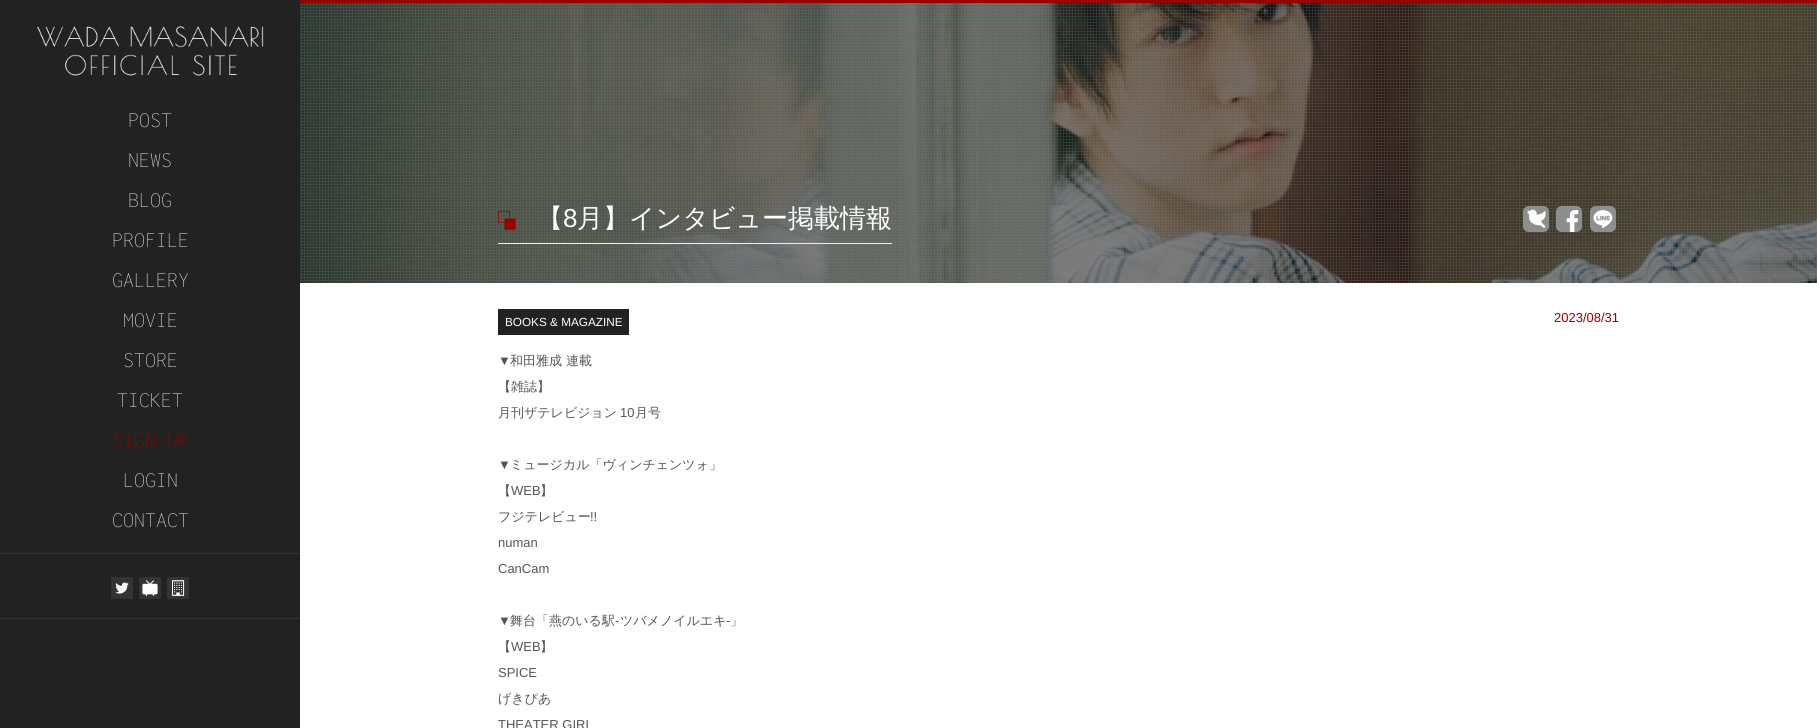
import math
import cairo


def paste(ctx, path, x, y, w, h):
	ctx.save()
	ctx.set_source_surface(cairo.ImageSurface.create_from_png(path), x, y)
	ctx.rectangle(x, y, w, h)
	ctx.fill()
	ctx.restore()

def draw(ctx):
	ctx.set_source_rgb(1, 1, 1)
	ctx.paint()
	ctx.set_source_rgb(0.133, 0.133, 0.133)
	ctx.rectangle(0, 0, 300, 728)
	ctx.fill()
	paste(ctx, 'media/1.png', 37, 26, 227, 50)
	ctx.select_font_face('Inconsolata ExtraLight')
	ctx.set_font_size(22)
	ctx.set_source_rgb(0.867, 0.867, 0.867)
	for x, y, s in [
		(128, 127, 'POST'),
		(128, 167, 'NEWS'),
		(128, 207, 'BLOG'),
		(112, 247, 'PROFILE'),
		(112, 287, 'GALLERY'),
		(123, 327, 'MOVIE'),
		(123, 367, 'STORE'),
		(117, 407, 'TICKET'),
	]:
		ctx.move_to(x, y)
		ctx.show_text(s)
	ctx.set_source_rgb(0.6, 0, 0)
	ctx.move_to(112, 447)
	ctx.show_text('SIGN UP')
	ctx.set_source_rgb(0.867, 0.867, 0.867)
	ctx.move_to(123, 487)
	ctx.show_text('LOGIN')
	ctx.move_to(112, 527)
	ctx.show_text('CONTACT')
	ctx.set_source_rgb(0.2, 0.2, 0.2)
	ctx.rectangle(0, 553, 300, 1)
	ctx.fill()
	ctx.rectangle(0, 618, 300, 1)
	ctx.fill()
	paste(ctx, 'media/2.png', 111, 577, 22, 22)
	paste(ctx, 'media/3.png', 139, 577, 22, 22)
	paste(ctx, 'media/4.png', 167, 577, 22, 22)
	ctx.set_source_rgb(0.6, 0, 0)
	ctx.rectangle(300, 0, 1517, 3)
	ctx.fill()
	paste(ctx, 'media/5.png', 300, 3, 1517, 280)
	paste(ctx, 'media/6.png', 300, 3, 1517, 280)
	ctx.set_source_rgb(0.933, 0.933, 0.933)
	ctx.rectangle(498, 243, 394, 1)
	ctx.fill()
	ctx.select_font_face('Liberation Sans')
	ctx.set_font_size(20)
	ctx.set_source_rgb(0.6, 0, 0)
	ctx.move_to(498, 223)
	ctx.show_text('□')
	ctx.select_font_face('WenQuanYi Zen Hei Medium')
	ctx.set_font_size(26)
	ctx.set_source_rgb(1, 1, 1)
	ctx.move_to(537, 227)
	ctx.show_text('【')
	ctx.select_font_face('Liberation Sans')
	ctx.move_to(563, 227)
	ctx.show_text('8')
	ctx.select_font_face('WenQuanYi Zen Hei Medium')
	ctx.move_to(577, 227)
	ctx.show_text('月】インタビュー掲載情報')
	ctx.select_font_face('Liberation Sans')
	ctx.set_font_size(23)
	ctx.set_source_rgb(0.6, 0, 0)
	ctx.move_to(503, 231)
	ctx.show_text('■')
	paste(ctx, 'media/7.png', 1523, 206, 26, 26)
	paste(ctx, 'media/8.png', 1556, 206, 26, 26)
	paste(ctx, 'media/9.png', 1590, 206, 26, 26)
	ctx.set_source_rgb(0.133, 0.133, 0.133)
	ctx.rectangle(498, 309, 131, 26)
	ctx.fill()
	ctx.set_font_size(11.75)
	ctx.set_source_rgb(1, 1, 1)
	ctx.move_to(505, 326)
	ctx.show_text('BOOKS & MAGAZINE')
	ctx.set_font_size(13)
	ctx.set_source_rgb(0.6, 0, 0)
	ctx.move_to(1554, 322)
	ctx.show_text('2023/08/31')
	ctx.set_source_rgb(0.333, 0.333, 0.333)
	ctx.move_to(498, 365)
	ctx.show_text('▼')
	ctx.select_font_face('WenQuanYi Zen Hei Medium')
	for x, y, s in [
		(510, 365, '和田雅成 連載'),
		(498, 391, '【雑誌】'),
		(498, 417, '月刊ザテレビジョン'),
	]:
		ctx.move_to(x, y)
		ctx.show_text(s)
	ctx.select_font_face('Liberation Sans')
	ctx.move_to(620, 417)
	ctx.show_text('10')
	ctx.select_font_face('WenQuanYi Zen Hei Medium')
	ctx.move_to(635, 417)
	ctx.show_text('月号')
	ctx.select_font_face('Liberation Sans')
	ctx.move_to(498, 469)
	ctx.show_text('▼')
	ctx.select_font_face('WenQuanYi Zen Hei Medium')
	ctx.move_to(510, 469)
	ctx.show_text('ミュージカル「ヴィンチェンツォ」')
	ctx.move_to(498, 495)
	ctx.show_text('【')
	ctx.select_font_face('Liberation Sans')
	ctx.move_to(511, 495)
	ctx.show_text('WEB')
	ctx.select_font_face('WenQuanYi Zen Hei Medium')
	ctx.move_to(540, 495)
	ctx.show_text('】')
	ctx.move_to(498, 521)
	ctx.show_text('フジテレビュー')
	ctx.select_font_face('Liberation Sans')
	for x, y, s in [
		(590, 521, '!!'),
		(498, 547, 'numan'),
		(498, 573, 'CanCam'),
		(498, 625, '▼'),
	]:
		ctx.move_to(x, y)
		ctx.show_text(s)
	ctx.select_font_face('WenQuanYi Zen Hei Medium')
	ctx.move_to(510, 625)
	ctx.show_text('舞台「燕のいる駅')
	ctx.select_font_face('Liberation Sans')
	ctx.move_to(615, 625)
	ctx.show_text('-')
	ctx.select_font_face('WenQuanYi Zen Hei Medium')
	ctx.move_to(620, 625)
	ctx.show_text('ツバメノイルエキ')
	ctx.select_font_face('Liberation Sans')
	ctx.move_to(726, 625)
	ctx.show_text('-')
	ctx.select_font_face('WenQuanYi Zen Hei Medium')
	ctx.move_to(730, 625)
	ctx.show_text('」')
	ctx.move_to(498, 651)
	ctx.show_text('【')
	ctx.select_font_face('Liberation Sans')
	ctx.move_to(511, 651)
	ctx.show_text('WEB')
	ctx.select_font_face('WenQuanYi Zen Hei Medium')
	ctx.move_to(540, 651)
	ctx.show_text('】')
	ctx.select_font_face('Liberation Sans')
	ctx.move_to(498, 677)
	ctx.show_text('SPICE')
	ctx.select_font_face('WenQuanYi Zen Hei Medium')
	ctx.move_to(498, 703)
	ctx.show_text('げきぴあ')
	ctx.select_font_face('Liberation Sans')
	ctx.move_to(498, 729)
	ctx.show_text('THEATER GIRL')


surface = cairo.ImageSurface(cairo.FORMAT_RGB24, 1817, 728)
ctx = cairo.Context(surface)
options = cairo.FontOptions()
options.set_hint_metrics(cairo.HINT_METRICS_OFF)
options.set_hint_style(cairo.HINT_STYLE_NONE)
ctx.set_font_options(options)
ctx.set_miter_limit(4)
draw(ctx)
surface.write_to_png('image.png')
